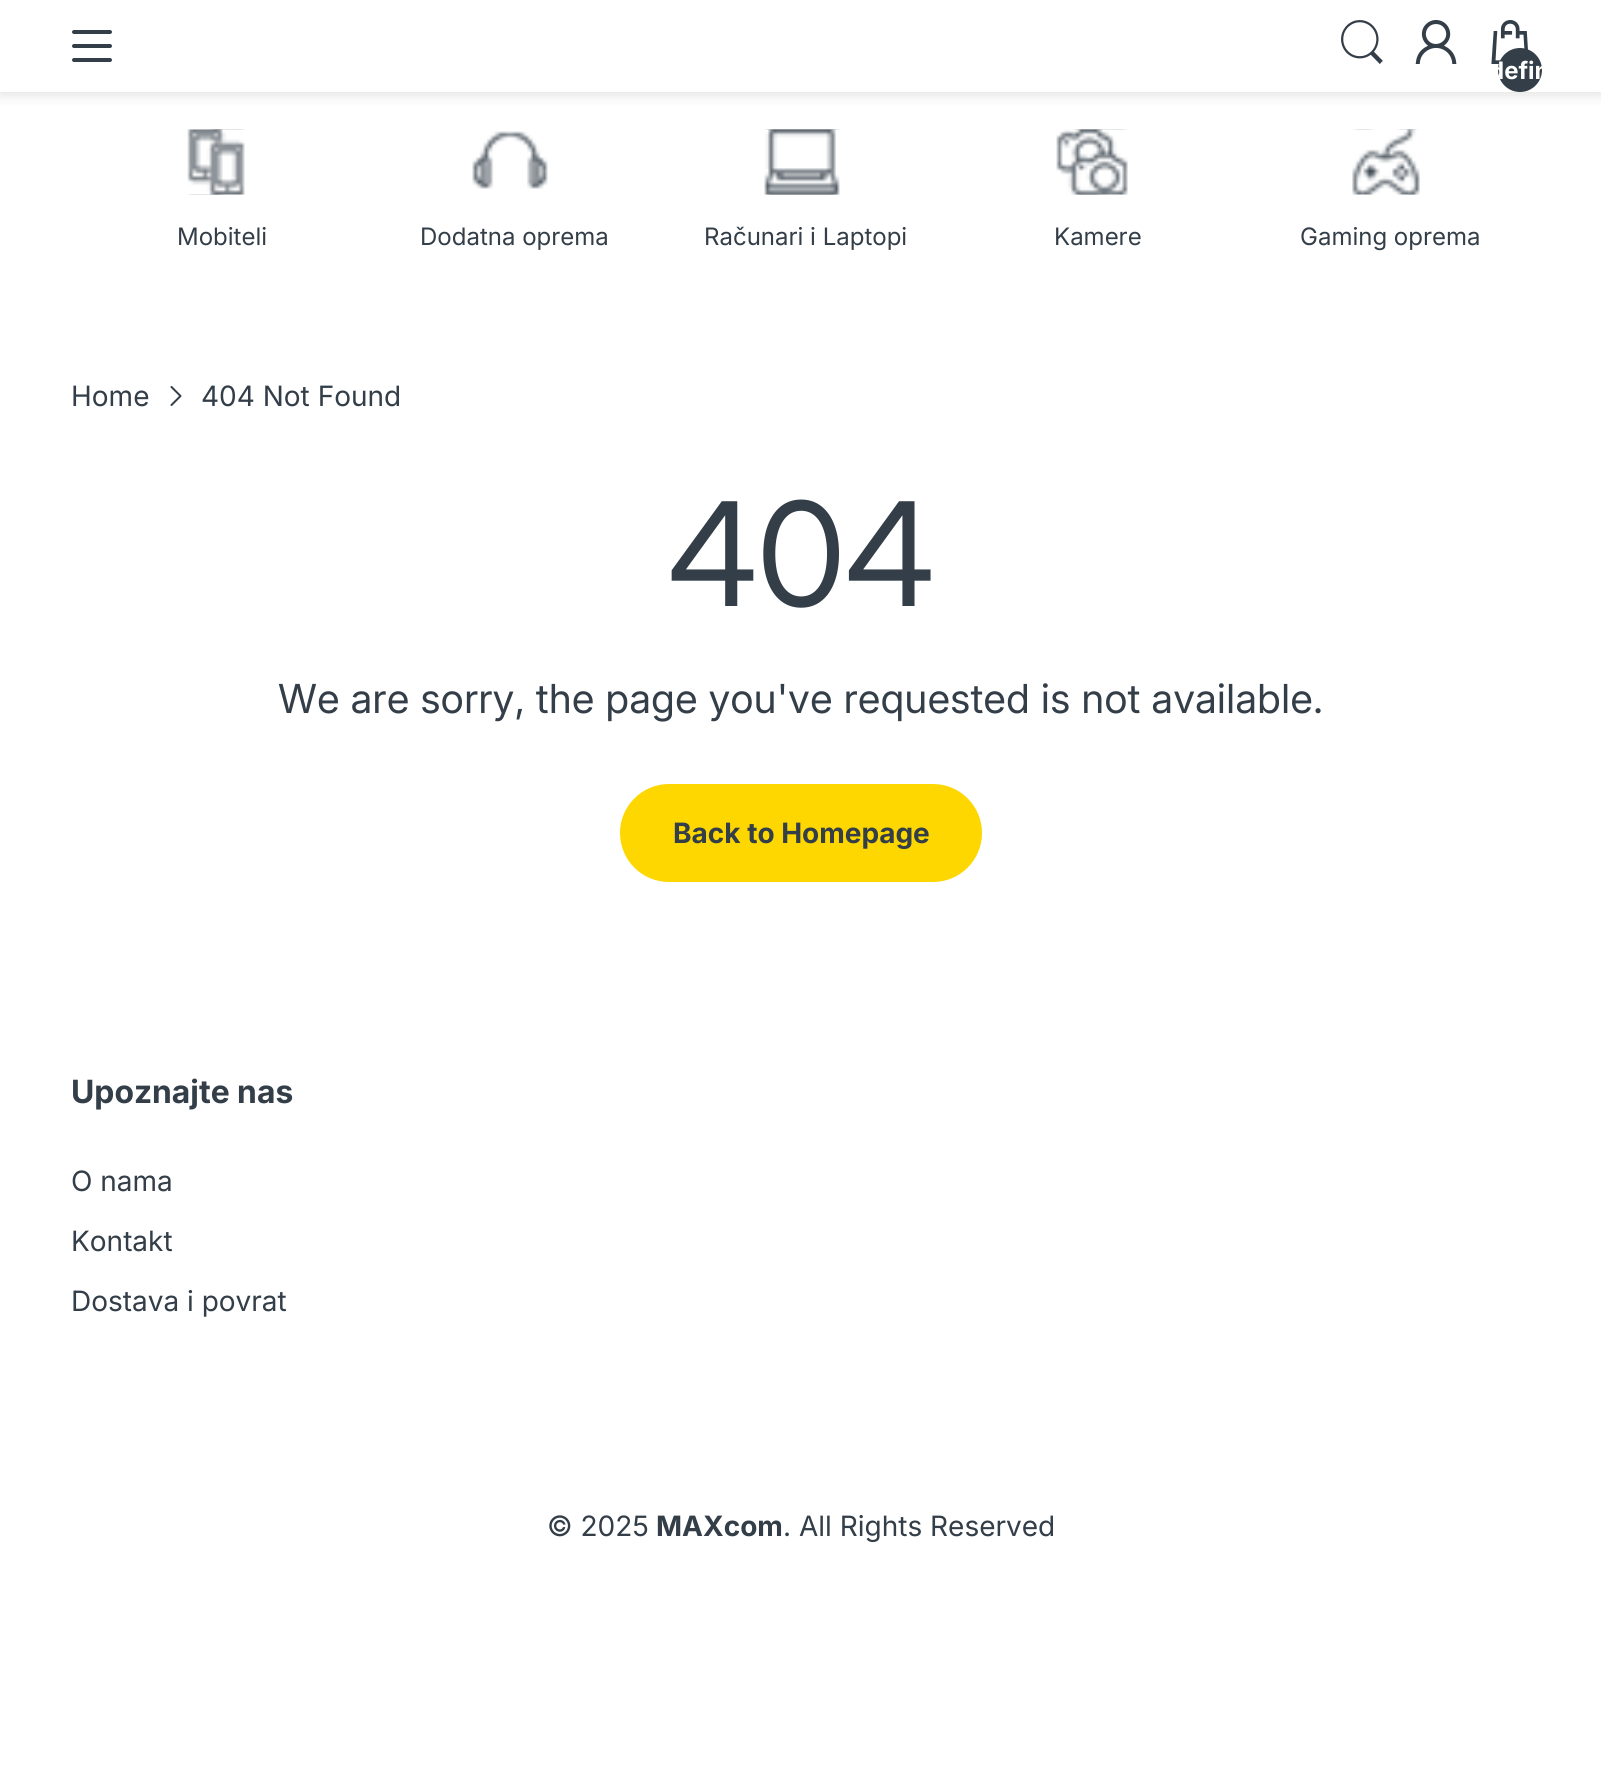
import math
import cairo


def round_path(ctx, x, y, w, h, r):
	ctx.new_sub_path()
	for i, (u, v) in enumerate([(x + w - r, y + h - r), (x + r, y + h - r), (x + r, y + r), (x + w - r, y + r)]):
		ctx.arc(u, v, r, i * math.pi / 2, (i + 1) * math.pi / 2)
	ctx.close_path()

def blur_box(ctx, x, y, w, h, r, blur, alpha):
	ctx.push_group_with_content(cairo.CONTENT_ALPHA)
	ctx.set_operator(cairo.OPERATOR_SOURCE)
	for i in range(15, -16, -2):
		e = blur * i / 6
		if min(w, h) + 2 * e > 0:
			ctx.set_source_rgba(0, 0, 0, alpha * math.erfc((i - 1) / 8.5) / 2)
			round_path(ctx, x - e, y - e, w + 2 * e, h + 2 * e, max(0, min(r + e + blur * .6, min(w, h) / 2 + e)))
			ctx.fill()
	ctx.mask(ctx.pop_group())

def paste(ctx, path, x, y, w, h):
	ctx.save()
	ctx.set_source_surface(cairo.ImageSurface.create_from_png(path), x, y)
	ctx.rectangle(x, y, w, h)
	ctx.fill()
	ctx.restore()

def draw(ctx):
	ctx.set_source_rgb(1, 1, 1)
	ctx.paint()
	ctx.save()
	ctx.rectangle(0, 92, 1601, 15)
	ctx.clip()
	ctx.set_source_rgb(0.788, 0.788, 0.788)
	blur_box(ctx, 0, 0, 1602, 92, 0, 8, 0.75)
	ctx.restore()
	paste(ctx, 'media/1.png', 72, 30, 40, 32)
	paste(ctx, 'media/2.png', 1341, 20, 42, 44)
	paste(ctx, 'media/3.png', 1415, 20, 42, 44)
	paste(ctx, 'media/4.png', 1491, 20, 37, 44)
	ctx.set_source_rgb(0.2, 0.243, 0.282)
	ctx.arc(1520, 70, 22, 0, 2 * math.pi)
	ctx.fill()
	ctx.select_font_face('Inter', cairo.FONT_SLANT_NORMAL, cairo.FONT_WEIGHT_BOLD)
	ctx.set_font_size(24)
	ctx.set_source_rgb(1, 1, 1)
	ctx.move_to(1489, 79)
	ctx.show_text('defin')
	paste(ctx, 'media/5.png', 187, 129, 58, 66)
	ctx.select_font_face('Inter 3')
	ctx.set_source_rgb(0.2, 0.243, 0.282)
	ctx.move_to(177, 245)
	ctx.show_text('Mobiteli')
	paste(ctx, 'media/6.png', 472, 131, 76, 58)
	ctx.move_to(420, 245)
	ctx.show_text('Dodatna oprema')
	paste(ctx, 'media/7.png', 764, 129, 76, 66)
	ctx.move_to(704, 245)
	ctx.show_text('Računari i Laptopi')
	paste(ctx, 'media/8.png', 1056, 129, 72, 66)
	ctx.move_to(1054, 245)
	ctx.show_text('Kamere')
	paste(ctx, 'media/9.png', 1352, 129, 68, 66)
	ctx.move_to(1300, 245)
	ctx.show_text('Gaming oprema')
	ctx.set_font_size(28)
	ctx.move_to(71, 406)
	ctx.show_text('Home')
	paste(ctx, 'media/10.png', 170, 386, 12, 20)
	ctx.move_to(201, 406)
	ctx.show_text('404 Not Found')
	ctx.select_font_face('Inter')
	ctx.set_font_size(144)
	ctx.move_to(668, 606)
	ctx.show_text('404')
	ctx.select_font_face('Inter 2')
	ctx.set_font_size(40)
	ctx.move_to(278, 713)
	ctx.show_text('We are sorry, the page you\'ve requested is not available.')
	ctx.set_source_rgb(0.996, 0.843, 0)
	round_path(ctx, 621, 785, 360, 96, 48)
	ctx.fill_preserve()
	ctx.stroke()
	ctx.select_font_face('Inter', cairo.FONT_SLANT_NORMAL, cairo.FONT_WEIGHT_BOLD)
	ctx.set_font_size(28)
	ctx.set_source_rgb(0.2, 0.243, 0.282)
	ctx.move_to(673, 843)
	ctx.show_text('Back to Homepage')
	ctx.select_font_face('Inter 2', cairo.FONT_SLANT_NORMAL, cairo.FONT_WEIGHT_BOLD)
	ctx.set_font_size(32)
	ctx.move_to(71, 1103)
	ctx.show_text('Upoznajte nas')
	ctx.select_font_face('Inter 3')
	ctx.set_font_size(28)
	for x, y, s in [
		(71, 1191, 'O nama'),
		(71, 1251, 'Kontakt'),
		(71, 1311, 'Dostava i povrat'),
		(547, 1536, '© 2025'),
	]:
		ctx.move_to(x, y)
		ctx.show_text(s)
	ctx.select_font_face('Inter', cairo.FONT_SLANT_NORMAL, cairo.FONT_WEIGHT_BOLD)
	ctx.move_to(656, 1536)
	ctx.show_text('MAXcom')
	ctx.select_font_face('Inter 3')
	ctx.move_to(783, 1536)
	ctx.show_text('. All Rights Reserved')


surface = cairo.ImageSurface(cairo.FORMAT_RGB24, 1601, 1791)
ctx = cairo.Context(surface)
options = cairo.FontOptions()
options.set_hint_metrics(cairo.HINT_METRICS_OFF)
options.set_hint_style(cairo.HINT_STYLE_NONE)
ctx.set_font_options(options)
ctx.set_miter_limit(4)
draw(ctx)
surface.write_to_png('image.png')
